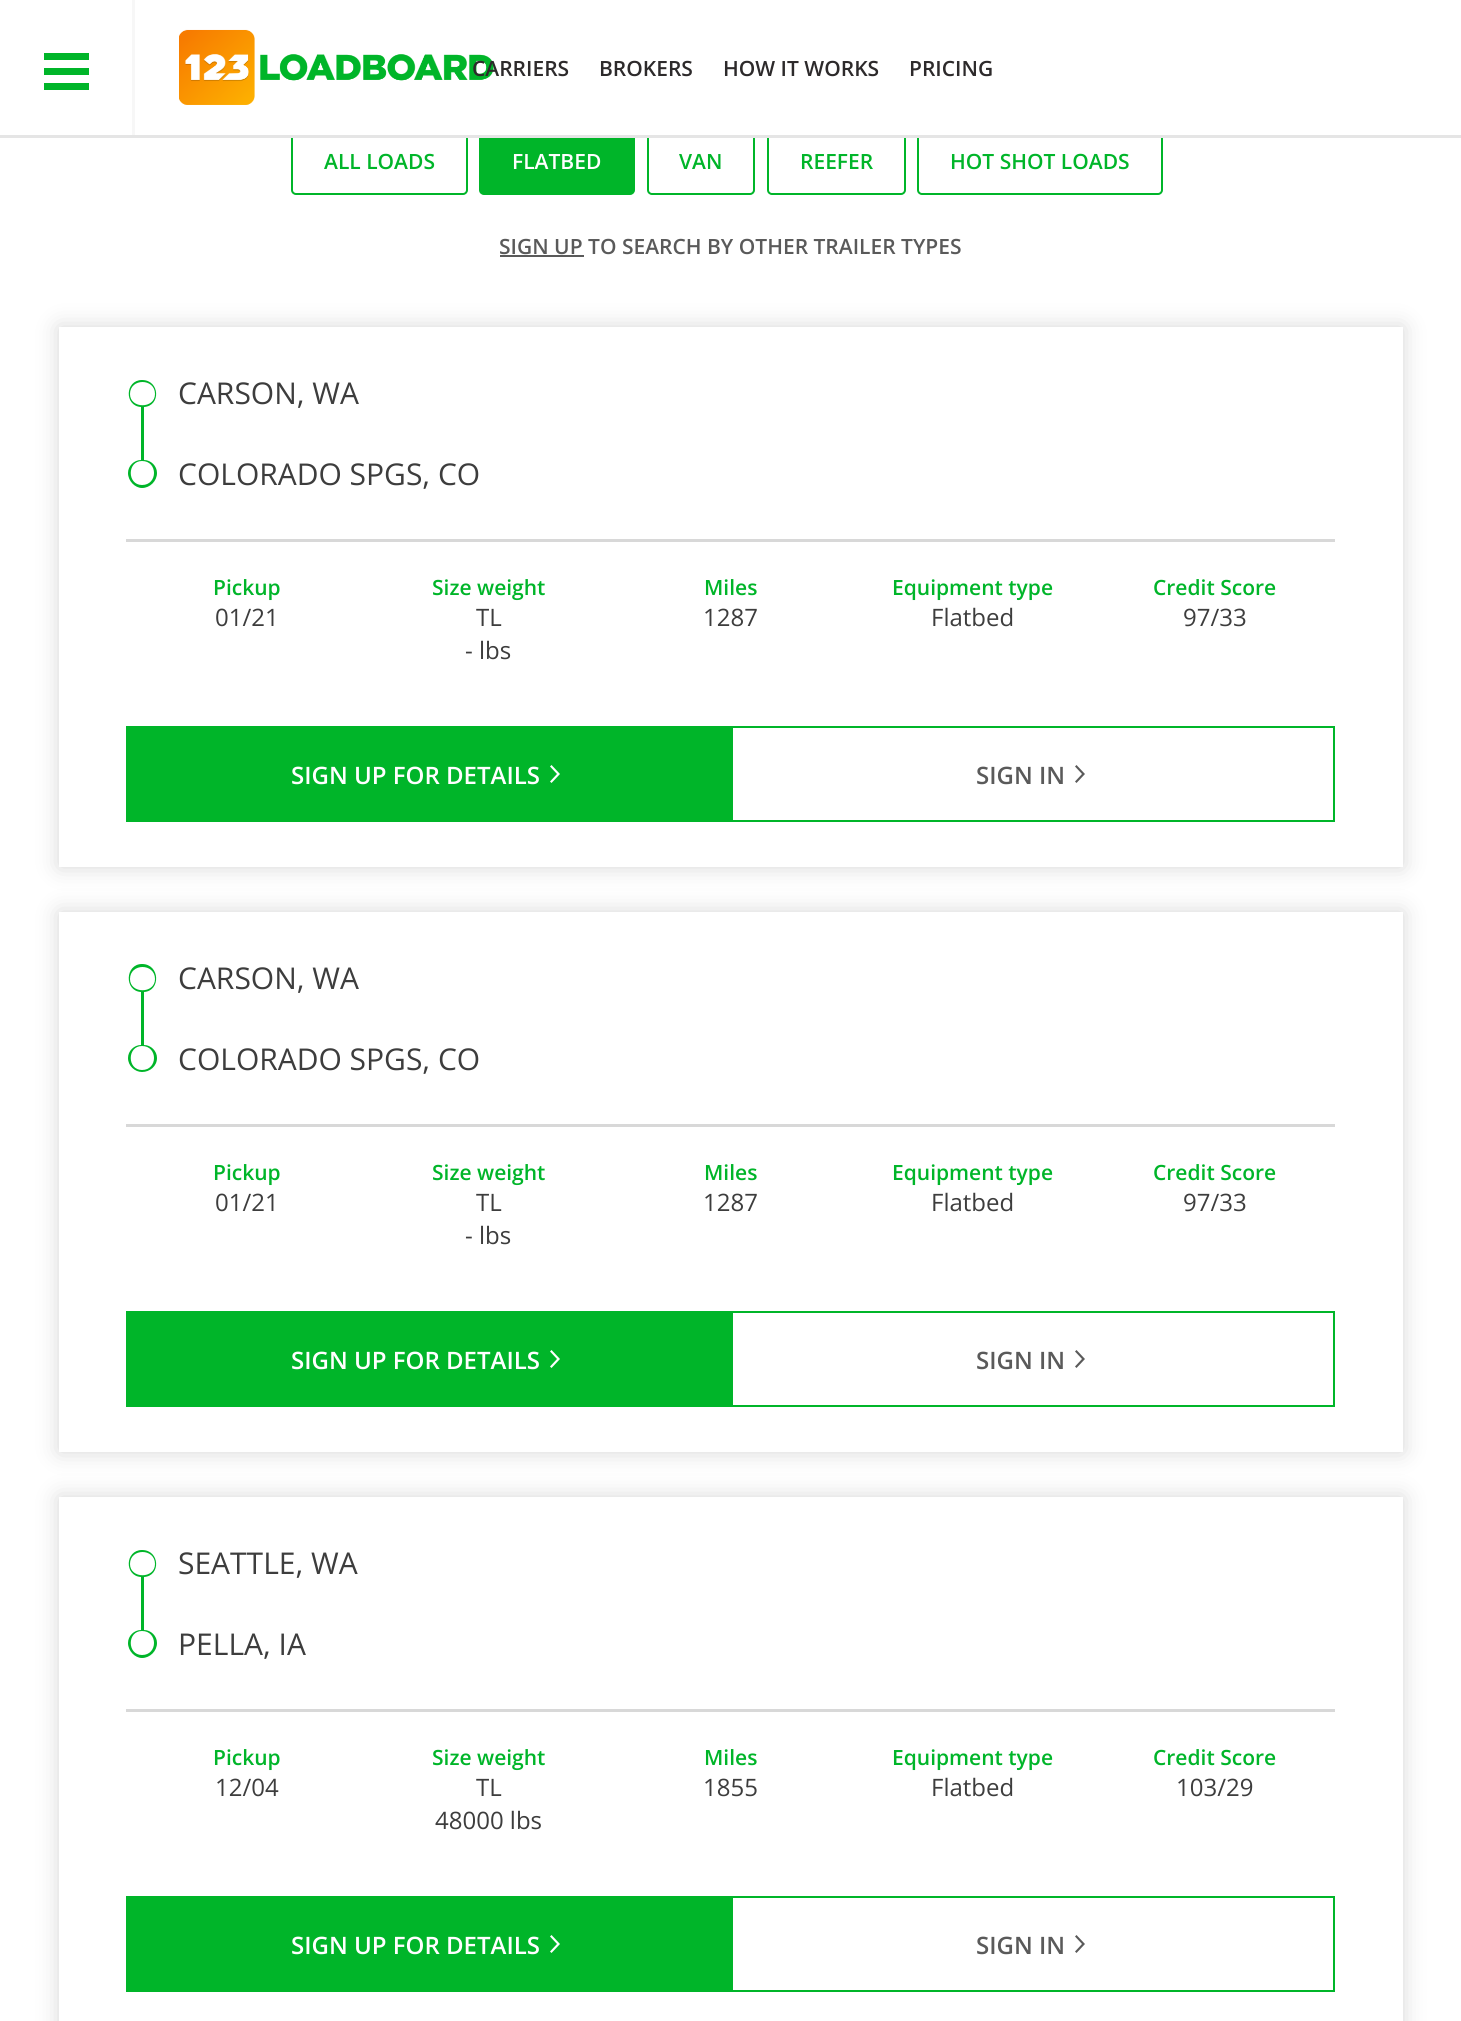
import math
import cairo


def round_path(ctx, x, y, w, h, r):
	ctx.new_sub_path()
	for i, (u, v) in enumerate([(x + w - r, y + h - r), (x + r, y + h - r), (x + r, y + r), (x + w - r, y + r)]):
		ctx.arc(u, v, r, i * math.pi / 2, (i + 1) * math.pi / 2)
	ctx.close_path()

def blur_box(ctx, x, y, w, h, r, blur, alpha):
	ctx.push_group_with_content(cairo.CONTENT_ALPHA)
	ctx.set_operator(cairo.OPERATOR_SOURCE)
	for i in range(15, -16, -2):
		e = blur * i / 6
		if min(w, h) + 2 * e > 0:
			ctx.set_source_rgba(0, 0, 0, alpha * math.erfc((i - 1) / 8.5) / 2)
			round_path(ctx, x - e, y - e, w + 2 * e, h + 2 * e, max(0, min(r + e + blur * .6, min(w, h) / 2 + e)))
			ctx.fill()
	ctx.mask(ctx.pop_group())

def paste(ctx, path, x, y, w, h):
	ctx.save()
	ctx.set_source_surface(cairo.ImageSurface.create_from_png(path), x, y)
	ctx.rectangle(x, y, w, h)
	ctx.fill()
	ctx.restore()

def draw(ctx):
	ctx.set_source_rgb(1, 1, 1)
	ctx.paint()
	round_path(ctx, 292, 127, 175, 67, 4)
	ctx.set_source_rgb(0, 0.71, 0.161)
	ctx.stroke()
	round_path(ctx, 480, 127, 154, 67, 4)
	ctx.fill_preserve()
	ctx.stroke()
	round_path(ctx, 648, 127, 106, 67, 4)
	ctx.stroke()
	round_path(ctx, 768, 127, 137, 67, 4)
	ctx.stroke()
	round_path(ctx, 918, 127, 244, 67, 4)
	ctx.stroke()
	ctx.set_source_rgb(1, 1, 1)
	ctx.rectangle(291, 126, 872, 9)
	ctx.fill()
	ctx.set_source_rgb(0.898, 0.898, 0.898)
	ctx.rectangle(0, 135, 1461, 3)
	ctx.fill()
	ctx.set_source_rgb(0.965, 0.965, 0.965)
	ctx.rectangle(132, 0, 3, 135)
	ctx.fill()
	ctx.set_source_rgb(0, 0.71, 0.161)
	ctx.rectangle(44, 68, 45, 7)
	ctx.rectangle(44, 53, 45, 7)
	ctx.rectangle(44, 83, 45, 7)
	ctx.fill()
	paste(ctx, 'media/1.png', 179, 29, 315, 76)
	ctx.select_font_face('Open Sans SemiBold')
	ctx.set_font_size(21)
	ctx.set_source_rgb(0.176, 0.165, 0.169)
	for x, y, s in [
		(472, 76, 'CARRIERS'),
		(599, 76, 'BROKERS'),
		(723, 76, 'HOW IT WORKS'),
		(909, 76, 'PRICING'),
	]:
		ctx.move_to(x, y)
		ctx.show_text(s)
	ctx.set_source_rgb(0, 0.71, 0.161)
	ctx.move_to(324, 169)
	ctx.show_text('ALL LOADS')
	ctx.set_source_rgb(1, 1, 1)
	ctx.move_to(512, 169)
	ctx.show_text('FLATBED')
	ctx.set_source_rgb(0, 0.71, 0.161)
	for x, y, s in [
		(679, 169, 'VAN'),
		(800, 169, 'REEFER'),
		(950, 169, 'HOT SHOT LOADS'),
	]:
		ctx.move_to(x, y)
		ctx.show_text(s)
	ctx.set_source_rgb(0.353, 0.353, 0.353)
	ctx.move_to(499, 254)
	ctx.show_text('SIGN UP TO SEARCH BY OTHER TRAILER TYPES')
	ctx.rectangle(500, 255, 84, 2)
	ctx.fill()
	ctx.save()
	ctx.set_fill_rule(cairo.FILL_RULE_EVEN_ODD)
	ctx.new_path()
	ctx.move_to(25, 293)
	ctx.line_to(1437, 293)
	ctx.line_to(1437, 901)
	ctx.line_to(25, 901)
	ctx.close_path()
	ctx.move_to(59, 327)
	ctx.line_to(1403, 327)
	ctx.line_to(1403, 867)
	ctx.line_to(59, 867)
	ctx.close_path()
	ctx.clip()
	ctx.set_source_rgb(0.459, 0.459, 0.459)
	blur_box(ctx, 59, 327, 1344, 540, 0, 11, 0.3)
	ctx.restore()
	ctx.set_source_rgb(0, 0.71, 0.161)
	ctx.new_path()
	ctx.move_to(144, 460)
	ctx.curve_to(151, 460, 157, 466, 157, 473)
	ctx.curve_to(157, 481, 150, 488, 142, 488)
	ctx.curve_to(135, 488, 128, 481, 128, 473)
	ctx.curve_to(128, 466, 134, 460, 141, 460)
	ctx.line_to(141, 407)
	ctx.curve_to(124, 406, 125, 380, 142, 380)
	ctx.curve_to(160, 380, 161, 406, 144, 407)
	ctx.close_path()
	ctx.move_to(130, 394)
	ctx.curve_to(130, 409, 155, 409, 155, 394)
	ctx.curve_to(155, 378, 130, 378, 130, 394)
	ctx.close_path()
	ctx.move_to(142, 485)
	ctx.curve_to(158, 485, 158, 461, 142, 461)
	ctx.curve_to(127, 461, 127, 485, 142, 485)
	ctx.close_path()
	ctx.fill()
	ctx.select_font_face('Open Sans')
	ctx.set_font_size(30)
	ctx.set_source_rgb(0.239, 0.239, 0.239)
	ctx.move_to(178, 404)
	ctx.show_text('CARSON, WA')
	ctx.set_source_rgb(0.847, 0.847, 0.847)
	ctx.rectangle(126, 539, 1209, 3)
	ctx.fill()
	ctx.set_source_rgb(0.239, 0.239, 0.239)
	ctx.move_to(178, 485)
	ctx.show_text('COLORADO SPGS, CO')
	ctx.select_font_face('Open Sans SemiBold')
	ctx.set_font_size(21)
	ctx.set_source_rgb(0, 0.71, 0.161)
	ctx.move_to(213, 595)
	ctx.show_text('Pickup')
	ctx.select_font_face('Open Sans')
	ctx.set_font_size(24)
	ctx.set_source_rgb(0.239, 0.239, 0.239)
	ctx.move_to(215, 626)
	ctx.show_text('01/21')
	ctx.select_font_face('Open Sans SemiBold')
	ctx.set_font_size(21)
	ctx.set_source_rgb(0, 0.71, 0.161)
	ctx.move_to(432, 595)
	ctx.show_text('Size weight')
	ctx.select_font_face('Open Sans')
	ctx.set_font_size(24)
	ctx.set_source_rgb(0.239, 0.239, 0.239)
	ctx.move_to(476, 626)
	ctx.show_text('TL')
	ctx.move_to(465, 659)
	ctx.show_text('- lbs')
	ctx.select_font_face('Open Sans SemiBold')
	ctx.set_font_size(21)
	ctx.set_source_rgb(0, 0.71, 0.161)
	ctx.move_to(704, 595)
	ctx.show_text('Miles')
	ctx.select_font_face('Open Sans')
	ctx.set_font_size(24)
	ctx.set_source_rgb(0.239, 0.239, 0.239)
	ctx.move_to(703, 626)
	ctx.show_text('1287')
	ctx.select_font_face('Open Sans SemiBold')
	ctx.set_font_size(21)
	ctx.set_source_rgb(0, 0.71, 0.161)
	ctx.move_to(892, 595)
	ctx.show_text('Equipment type')
	ctx.select_font_face('Open Sans')
	ctx.set_font_size(24)
	ctx.set_source_rgb(0.239, 0.239, 0.239)
	ctx.move_to(931, 626)
	ctx.show_text('Flatbed')
	ctx.select_font_face('Open Sans SemiBold')
	ctx.set_font_size(21)
	ctx.set_source_rgb(0, 0.71, 0.161)
	ctx.move_to(1153, 595)
	ctx.show_text('Credit Score')
	ctx.select_font_face('Open Sans')
	ctx.set_font_size(24)
	ctx.set_source_rgb(0.239, 0.239, 0.239)
	ctx.move_to(1183, 626)
	ctx.show_text('97/33')
	ctx.set_source_rgb(0, 0.71, 0.161)
	ctx.rectangle(126, 726, 605, 96)
	ctx.fill()
	ctx.select_font_face('Open Sans SemiBold')
	ctx.set_source_rgb(1, 1, 1)
	ctx.move_to(291, 784)
	ctx.show_text('SIGN UP FOR DETAILS')
	ctx.new_path()
	ctx.move_to(551.5, 765)
	ctx.line_to(560, 774)
	ctx.line_to(551.5, 783)
	ctx.line_to(550, 781.5)
	ctx.line_to(557, 774)
	ctx.line_to(550, 766.5)
	ctx.close_path()
	ctx.fill()
	ctx.rectangle(732, 727, 602, 94)
	ctx.set_source_rgb(0, 0.71, 0.161)
	ctx.stroke()
	ctx.set_source_rgb(0.353, 0.353, 0.353)
	ctx.move_to(976, 784)
	ctx.show_text('SIGN IN')
	ctx.new_path()
	ctx.move_to(1076.5, 765)
	ctx.line_to(1085, 774)
	ctx.line_to(1076.5, 783)
	ctx.line_to(1075, 781.5)
	ctx.line_to(1082, 774)
	ctx.line_to(1075, 766.5)
	ctx.close_path()
	ctx.fill()
	ctx.save()
	ctx.set_fill_rule(cairo.FILL_RULE_EVEN_ODD)
	ctx.new_path()
	ctx.move_to(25, 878)
	ctx.line_to(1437, 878)
	ctx.line_to(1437, 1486)
	ctx.line_to(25, 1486)
	ctx.close_path()
	ctx.move_to(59, 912)
	ctx.line_to(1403, 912)
	ctx.line_to(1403, 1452)
	ctx.line_to(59, 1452)
	ctx.close_path()
	ctx.clip()
	ctx.set_source_rgb(0.459, 0.459, 0.459)
	blur_box(ctx, 59, 912, 1344, 540, 0, 11, 0.3)
	ctx.restore()
	ctx.set_source_rgb(0, 0.71, 0.161)
	ctx.new_path()
	ctx.move_to(144, 1045)
	ctx.curve_to(151, 1045, 157, 1051, 157, 1058)
	ctx.curve_to(157, 1066, 150, 1072, 142, 1072)
	ctx.curve_to(135, 1072, 128, 1066, 128, 1058)
	ctx.curve_to(128, 1051, 134, 1045, 141, 1045)
	ctx.line_to(141, 992)
	ctx.curve_to(124, 991, 125, 964, 142, 964)
	ctx.curve_to(160, 964, 161, 991, 144, 992)
	ctx.close_path()
	ctx.move_to(130, 979)
	ctx.curve_to(130, 994, 155, 994, 155, 979)
	ctx.curve_to(155, 963, 130, 963, 130, 979)
	ctx.close_path()
	ctx.move_to(142, 1070)
	ctx.curve_to(158, 1070, 158, 1046, 142, 1046)
	ctx.curve_to(127, 1046, 127, 1070, 142, 1070)
	ctx.close_path()
	ctx.fill()
	ctx.select_font_face('Open Sans')
	ctx.set_font_size(30)
	ctx.set_source_rgb(0.239, 0.239, 0.239)
	ctx.move_to(178, 989)
	ctx.show_text('CARSON, WA')
	ctx.set_source_rgb(0.847, 0.847, 0.847)
	ctx.rectangle(126, 1124, 1209, 3)
	ctx.fill()
	ctx.set_source_rgb(0.239, 0.239, 0.239)
	ctx.move_to(178, 1070)
	ctx.show_text('COLORADO SPGS, CO')
	ctx.select_font_face('Open Sans SemiBold')
	ctx.set_font_size(21)
	ctx.set_source_rgb(0, 0.71, 0.161)
	ctx.move_to(213, 1180)
	ctx.show_text('Pickup')
	ctx.select_font_face('Open Sans')
	ctx.set_font_size(24)
	ctx.set_source_rgb(0.239, 0.239, 0.239)
	ctx.move_to(215, 1211)
	ctx.show_text('01/21')
	ctx.select_font_face('Open Sans SemiBold')
	ctx.set_font_size(21)
	ctx.set_source_rgb(0, 0.71, 0.161)
	ctx.move_to(432, 1180)
	ctx.show_text('Size weight')
	ctx.select_font_face('Open Sans')
	ctx.set_font_size(24)
	ctx.set_source_rgb(0.239, 0.239, 0.239)
	ctx.move_to(476, 1211)
	ctx.show_text('TL')
	ctx.move_to(465, 1244)
	ctx.show_text('- lbs')
	ctx.select_font_face('Open Sans SemiBold')
	ctx.set_font_size(21)
	ctx.set_source_rgb(0, 0.71, 0.161)
	ctx.move_to(704, 1180)
	ctx.show_text('Miles')
	ctx.select_font_face('Open Sans')
	ctx.set_font_size(24)
	ctx.set_source_rgb(0.239, 0.239, 0.239)
	ctx.move_to(703, 1211)
	ctx.show_text('1287')
	ctx.select_font_face('Open Sans SemiBold')
	ctx.set_font_size(21)
	ctx.set_source_rgb(0, 0.71, 0.161)
	ctx.move_to(892, 1180)
	ctx.show_text('Equipment type')
	ctx.select_font_face('Open Sans')
	ctx.set_font_size(24)
	ctx.set_source_rgb(0.239, 0.239, 0.239)
	ctx.move_to(931, 1211)
	ctx.show_text('Flatbed')
	ctx.select_font_face('Open Sans SemiBold')
	ctx.set_font_size(21)
	ctx.set_source_rgb(0, 0.71, 0.161)
	ctx.move_to(1153, 1180)
	ctx.show_text('Credit Score')
	ctx.select_font_face('Open Sans')
	ctx.set_font_size(24)
	ctx.set_source_rgb(0.239, 0.239, 0.239)
	ctx.move_to(1183, 1211)
	ctx.show_text('97/33')
	ctx.set_source_rgb(0, 0.71, 0.161)
	ctx.rectangle(126, 1311, 605, 96)
	ctx.fill()
	ctx.select_font_face('Open Sans SemiBold')
	ctx.set_source_rgb(1, 1, 1)
	ctx.move_to(291, 1369)
	ctx.show_text('SIGN UP FOR DETAILS')
	ctx.new_path()
	ctx.move_to(551.5, 1350)
	ctx.line_to(560, 1359)
	ctx.line_to(551.5, 1368)
	ctx.line_to(550, 1366.5)
	ctx.line_to(557, 1359)
	ctx.line_to(550, 1351.5)
	ctx.close_path()
	ctx.fill()
	ctx.rectangle(732, 1312, 602, 94)
	ctx.set_source_rgb(0, 0.71, 0.161)
	ctx.stroke()
	ctx.set_source_rgb(0.353, 0.353, 0.353)
	ctx.move_to(976, 1369)
	ctx.show_text('SIGN IN')
	ctx.new_path()
	ctx.move_to(1076.5, 1350)
	ctx.line_to(1085, 1359)
	ctx.line_to(1076.5, 1368)
	ctx.line_to(1075, 1366.5)
	ctx.line_to(1082, 1359)
	ctx.line_to(1075, 1351.5)
	ctx.close_path()
	ctx.fill()
	ctx.save()
	ctx.set_fill_rule(cairo.FILL_RULE_EVEN_ODD)
	ctx.new_path()
	ctx.move_to(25, 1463)
	ctx.line_to(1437, 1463)
	ctx.line_to(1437, 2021)
	ctx.line_to(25, 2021)
	ctx.close_path()
	ctx.move_to(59, 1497)
	ctx.line_to(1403, 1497)
	ctx.line_to(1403, 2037)
	ctx.line_to(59, 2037)
	ctx.close_path()
	ctx.clip()
	ctx.set_source_rgb(0.459, 0.459, 0.459)
	blur_box(ctx, 59, 1497, 1344, 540, 0, 11, 0.3)
	ctx.restore()
	ctx.set_source_rgb(0, 0.71, 0.161)
	ctx.new_path()
	ctx.move_to(144, 1630)
	ctx.curve_to(151, 1630, 157, 1636, 157, 1643)
	ctx.curve_to(157, 1651, 150, 1658, 142, 1658)
	ctx.curve_to(135, 1658, 128, 1651, 128, 1643)
	ctx.curve_to(128, 1636, 134, 1630, 141, 1630)
	ctx.line_to(141, 1577)
	ctx.curve_to(124, 1576, 125, 1550, 142, 1550)
	ctx.curve_to(160, 1550, 161, 1576, 144, 1577)
	ctx.close_path()
	ctx.move_to(130, 1564)
	ctx.curve_to(130, 1579, 155, 1579, 155, 1564)
	ctx.curve_to(155, 1548, 130, 1548, 130, 1564)
	ctx.close_path()
	ctx.move_to(142, 1655)
	ctx.curve_to(158, 1655, 158, 1631, 142, 1631)
	ctx.curve_to(127, 1631, 127, 1655, 142, 1655)
	ctx.close_path()
	ctx.fill()
	ctx.select_font_face('Open Sans')
	ctx.set_font_size(30)
	ctx.set_source_rgb(0.239, 0.239, 0.239)
	ctx.move_to(178, 1574)
	ctx.show_text('SEATTLE, WA')
	ctx.set_source_rgb(0.847, 0.847, 0.847)
	ctx.rectangle(126, 1709, 1209, 3)
	ctx.fill()
	ctx.set_source_rgb(0.239, 0.239, 0.239)
	ctx.move_to(178, 1655)
	ctx.show_text('PELLA, IA')
	ctx.select_font_face('Open Sans SemiBold')
	ctx.set_font_size(21)
	ctx.set_source_rgb(0, 0.71, 0.161)
	ctx.move_to(213, 1765)
	ctx.show_text('Pickup')
	ctx.select_font_face('Open Sans')
	ctx.set_font_size(24)
	ctx.set_source_rgb(0.239, 0.239, 0.239)
	ctx.move_to(215, 1796)
	ctx.show_text('12/04')
	ctx.select_font_face('Open Sans SemiBold')
	ctx.set_font_size(21)
	ctx.set_source_rgb(0, 0.71, 0.161)
	ctx.move_to(432, 1765)
	ctx.show_text('Size weight')
	ctx.select_font_face('Open Sans')
	ctx.set_font_size(24)
	ctx.set_source_rgb(0.239, 0.239, 0.239)
	ctx.move_to(476, 1796)
	ctx.show_text('TL')
	ctx.move_to(435, 1829)
	ctx.show_text('48000 lbs')
	ctx.select_font_face('Open Sans SemiBold')
	ctx.set_font_size(21)
	ctx.set_source_rgb(0, 0.71, 0.161)
	ctx.move_to(704, 1765)
	ctx.show_text('Miles')
	ctx.select_font_face('Open Sans')
	ctx.set_font_size(24)
	ctx.set_source_rgb(0.239, 0.239, 0.239)
	ctx.move_to(703, 1796)
	ctx.show_text('1855')
	ctx.select_font_face('Open Sans SemiBold')
	ctx.set_font_size(21)
	ctx.set_source_rgb(0, 0.71, 0.161)
	ctx.move_to(892, 1765)
	ctx.show_text('Equipment type')
	ctx.select_font_face('Open Sans')
	ctx.set_font_size(24)
	ctx.set_source_rgb(0.239, 0.239, 0.239)
	ctx.move_to(931, 1796)
	ctx.show_text('Flatbed')
	ctx.select_font_face('Open Sans SemiBold')
	ctx.set_font_size(21)
	ctx.set_source_rgb(0, 0.71, 0.161)
	ctx.move_to(1153, 1765)
	ctx.show_text('Credit Score')
	ctx.select_font_face('Open Sans')
	ctx.set_font_size(24)
	ctx.set_source_rgb(0.239, 0.239, 0.239)
	ctx.move_to(1176, 1796)
	ctx.show_text('103/29')
	ctx.set_source_rgb(0, 0.71, 0.161)
	ctx.rectangle(126, 1896, 605, 96)
	ctx.fill()
	ctx.select_font_face('Open Sans SemiBold')
	ctx.set_source_rgb(1, 1, 1)
	ctx.move_to(291, 1954)
	ctx.show_text('SIGN UP FOR DETAILS')
	ctx.new_path()
	ctx.move_to(551.5, 1935)
	ctx.line_to(560, 1944)
	ctx.line_to(551.5, 1953)
	ctx.line_to(550, 1951.5)
	ctx.line_to(557, 1944)
	ctx.line_to(550, 1936.5)
	ctx.close_path()
	ctx.fill()
	ctx.rectangle(732, 1897, 602, 94)
	ctx.set_source_rgb(0, 0.71, 0.161)
	ctx.stroke()
	ctx.set_source_rgb(0.353, 0.353, 0.353)
	ctx.move_to(976, 1954)
	ctx.show_text('SIGN IN')
	ctx.new_path()
	ctx.move_to(1076.5, 1935)
	ctx.line_to(1085, 1944)
	ctx.line_to(1076.5, 1953)
	ctx.line_to(1075, 1951.5)
	ctx.line_to(1082, 1944)
	ctx.line_to(1075, 1936.5)
	ctx.close_path()
	ctx.fill()


surface = cairo.ImageSurface(cairo.FORMAT_RGB24, 1461, 2021)
ctx = cairo.Context(surface)
options = cairo.FontOptions()
options.set_hint_metrics(cairo.HINT_METRICS_OFF)
options.set_hint_style(cairo.HINT_STYLE_NONE)
ctx.set_font_options(options)
ctx.set_miter_limit(4)
draw(ctx)
surface.write_to_png('image.png')
